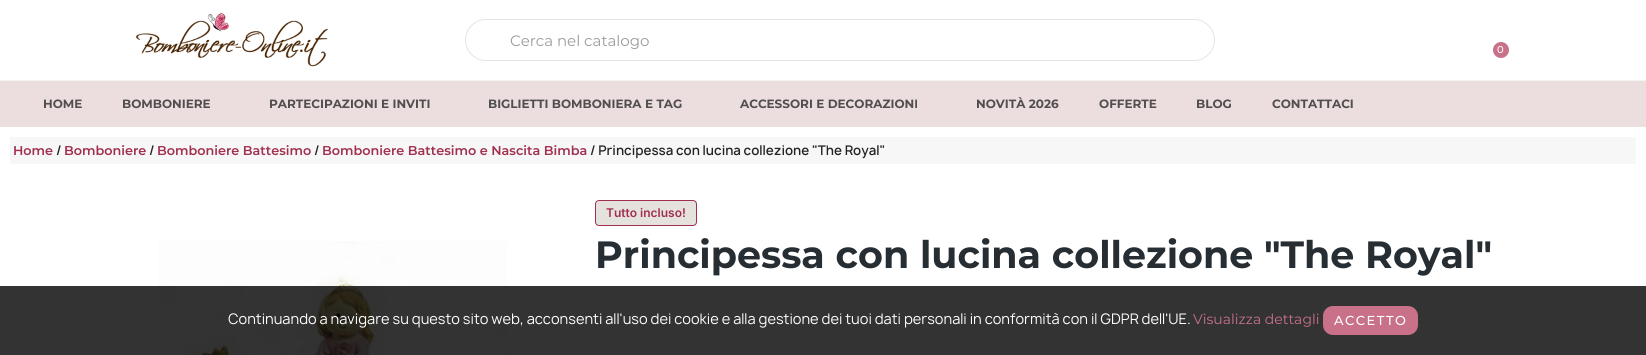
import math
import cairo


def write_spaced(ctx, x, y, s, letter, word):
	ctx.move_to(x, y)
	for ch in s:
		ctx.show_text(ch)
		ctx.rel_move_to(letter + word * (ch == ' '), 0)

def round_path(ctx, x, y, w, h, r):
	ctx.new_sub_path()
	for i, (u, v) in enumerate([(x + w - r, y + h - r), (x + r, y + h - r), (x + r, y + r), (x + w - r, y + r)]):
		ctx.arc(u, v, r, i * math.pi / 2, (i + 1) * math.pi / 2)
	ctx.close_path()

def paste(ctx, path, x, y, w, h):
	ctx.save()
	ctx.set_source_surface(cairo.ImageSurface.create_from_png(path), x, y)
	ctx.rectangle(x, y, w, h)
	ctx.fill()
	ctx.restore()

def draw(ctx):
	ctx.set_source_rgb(1, 1, 1)
	ctx.paint()
	ctx.set_source_rgb(0.953, 0.953, 0.953)
	ctx.rectangle(0, 80, 1646, 1)
	ctx.fill()
	paste(ctx, 'media/1.png', 136, 13, 193, 54)
	round_path(ctx, 465.5, 19.5, 749, 41, 20.5)
	ctx.set_source_rgb(0.898, 0.898, 0.898)
	ctx.set_line_width(1)
	ctx.stroke()
	ctx.select_font_face('Montserrat')
	ctx.set_font_size(15)
	ctx.set_source_rgb(0.6, 0.608, 0.616)
	ctx.move_to(510, 46)
	ctx.show_text('Cerca nel catalogo')
	ctx.set_source_rgb(0.784, 0.443, 0.537)
	ctx.new_path()
	ctx.arc(1501, 50, 8, 0, 2 * math.pi)
	ctx.fill()
	ctx.select_font_face('Montserrat Medium')
	ctx.set_font_size(10)
	ctx.set_source_rgb(1, 1, 1)
	write_spaced(ctx, 1497, 53, '0', 1.5, 0)
	ctx.set_source_rgb(0.922, 0.867, 0.875)
	ctx.rectangle(0, 81, 1646, 46)
	ctx.fill()
	ctx.select_font_face('Montserrat', cairo.FONT_SLANT_NORMAL, cairo.FONT_WEIGHT_BOLD)
	ctx.set_font_size(12)
	ctx.set_source_rgb(0.314, 0.306, 0.306)
	for x, y, s in [
		(43, 108, 'HOME'),
		(122, 108, 'BOMBONIERE'),
		(269, 108, 'PARTECIPAZIONI E INVITI'),
		(488, 108, 'BIGLIETTI BOMBONIERA E TAG'),
		(740, 108, 'ACCESSORI E DECORAZIONI'),
		(976, 108, 'NOVITÀ 2026'),
		(1099, 108, 'OFFERTE'),
		(1196, 108, 'BLOG'),
		(1272, 108, 'CONTATTACI'),
	]:
		ctx.move_to(x, y)
		ctx.show_text(s)
	ctx.set_source_rgb(0.965, 0.965, 0.965)
	ctx.rectangle(10, 137, 1626, 27)
	ctx.fill()
	ctx.select_font_face('Montserrat SemiBold')
	ctx.set_font_size(12.8)
	ctx.set_source_rgb(0.631, 0.184, 0.31)
	ctx.move_to(13, 155)
	ctx.show_text('Home')
	ctx.select_font_face('Manrope SemiBold')
	ctx.set_source_rgb(0.137, 0.137, 0.137)
	ctx.move_to(56, 155)
	ctx.show_text('/')
	ctx.select_font_face('Montserrat SemiBold')
	ctx.set_source_rgb(0.631, 0.184, 0.31)
	ctx.move_to(64, 155)
	ctx.show_text('Bomboniere')
	ctx.select_font_face('Manrope SemiBold')
	ctx.set_source_rgb(0.137, 0.137, 0.137)
	ctx.move_to(149, 155)
	ctx.show_text('/')
	ctx.select_font_face('Montserrat SemiBold')
	ctx.set_source_rgb(0.631, 0.184, 0.31)
	ctx.move_to(157, 155)
	ctx.show_text('Bomboniere Battesimo')
	ctx.select_font_face('Manrope SemiBold')
	ctx.set_source_rgb(0.137, 0.137, 0.137)
	ctx.move_to(314, 155)
	ctx.show_text('/')
	ctx.select_font_face('Montserrat SemiBold')
	ctx.set_source_rgb(0.631, 0.184, 0.31)
	ctx.move_to(322, 155)
	ctx.show_text('Bomboniere Battesimo e Nascita Bimba')
	ctx.select_font_face('Manrope SemiBold')
	ctx.set_source_rgb(0.137, 0.137, 0.137)
	ctx.move_to(590, 155)
	ctx.show_text('/ Principessa con lucina collezione "The Royal"')
	paste(ctx, 'media/2.png', 158, 241, 349, 114)
	ctx.set_source_rgb(0.898, 0.886, 0.871)
	round_path(ctx, 595.5, 200.5, 101, 25, 3.5)
	ctx.fill_preserve()
	ctx.set_source_rgb(0.631, 0.184, 0.31)
	ctx.stroke()
	ctx.select_font_face('Inter SemiBold')
	ctx.set_font_size(12)
	ctx.move_to(606, 217)
	ctx.show_text('Tutto incluso!')
	ctx.select_font_face('Montserrat', cairo.FONT_SLANT_NORMAL, cairo.FONT_WEIGHT_BOLD)
	ctx.set_font_size(38)
	ctx.set_source_rgb(0.149, 0.176, 0.2)
	ctx.move_to(595, 268)
	ctx.show_text('Principessa con lucina collezione "The Royal"')
	ctx.set_source_rgba(0, 0, 0, 0.8)
	ctx.rectangle(0, 286, 1646, 69)
	ctx.fill()
	ctx.select_font_face('Manrope')
	ctx.set_font_size(14)
	ctx.set_source_rgb(1, 1, 1)
	ctx.move_to(228, 324)
	ctx.show_text('Continuando a navigare su questo sito web, acconsenti all\'uso dei cookie e alla gestione dei tuoi dati personali in conformità con il GDPR dell\'UE.')
	ctx.select_font_face('Montserrat')
	ctx.set_source_rgb(0.784, 0.443, 0.537)
	ctx.move_to(1193, 324)
	ctx.show_text('Visualizza dettagli')
	round_path(ctx, 1323, 306, 95, 29, 10)
	ctx.fill()
	ctx.select_font_face('Montserrat Medium')
	ctx.set_font_size(13)
	ctx.set_source_rgb(1, 1, 1)
	write_spaced(ctx, 1334, 325, 'ACCETTO', 1.5, 0)


surface = cairo.ImageSurface(cairo.FORMAT_RGB24, 1646, 355)
ctx = cairo.Context(surface)
options = cairo.FontOptions()
options.set_hint_metrics(cairo.HINT_METRICS_OFF)
options.set_hint_style(cairo.HINT_STYLE_NONE)
ctx.set_font_options(options)
ctx.set_miter_limit(4)
draw(ctx)
surface.write_to_png('image.png')
